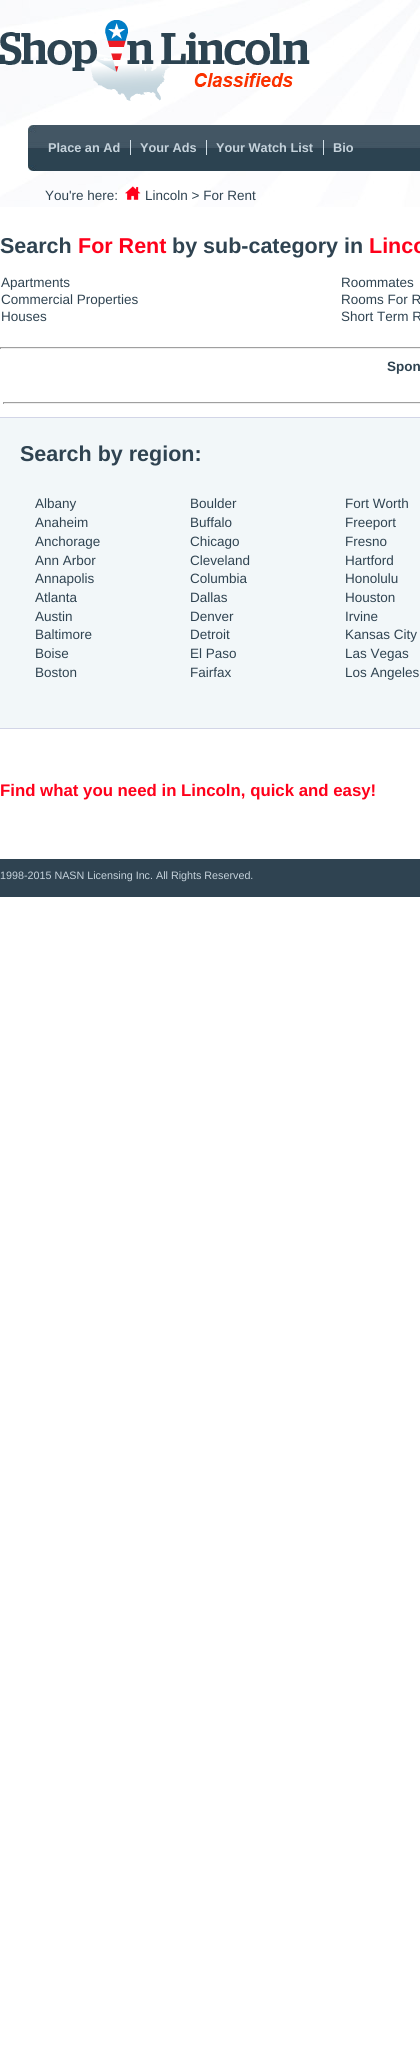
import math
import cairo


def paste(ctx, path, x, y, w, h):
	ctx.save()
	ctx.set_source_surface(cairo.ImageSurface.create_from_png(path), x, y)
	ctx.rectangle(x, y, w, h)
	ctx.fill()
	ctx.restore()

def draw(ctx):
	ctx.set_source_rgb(1, 1, 1)
	ctx.paint()
	paste(ctx, 'media/1.png', 0, 0, 420, 207)
	paste(ctx, 'media/2.png', 0, 20, 310, 81)
	paste(ctx, 'media/3.png', 28, 125, 392, 46)
	ctx.select_font_face('Liberation Sans', cairo.FONT_SLANT_NORMAL, cairo.FONT_WEIGHT_BOLD)
	ctx.set_font_size(12.75)
	ctx.set_source_rgb(0.773, 0.824, 0.859)
	ctx.move_to(48, 152)
	ctx.show_text('Place an Ad')
	ctx.set_source_rgb(0.824, 0.875, 0.906)
	ctx.rectangle(130, 140, 1, 15)
	ctx.fill()
	ctx.set_source_rgb(0.773, 0.824, 0.859)
	ctx.move_to(140, 152)
	ctx.show_text('Your Ads')
	ctx.set_source_rgb(0.824, 0.875, 0.906)
	ctx.rectangle(206, 140, 1, 15)
	ctx.fill()
	ctx.set_source_rgb(0.773, 0.824, 0.859)
	ctx.move_to(216, 152)
	ctx.show_text('Your Watch List')
	ctx.set_source_rgb(0.824, 0.875, 0.906)
	ctx.rectangle(323, 140, 1, 15)
	ctx.fill()
	ctx.set_source_rgb(0.773, 0.824, 0.859)
	ctx.move_to(333, 152)
	ctx.show_text('Bio')
	ctx.select_font_face('Liberation Sans')
	ctx.set_font_size(13.5)
	ctx.set_source_rgb(0.184, 0.263, 0.318)
	ctx.move_to(45, 200)
	ctx.show_text('You\'re here:')
	paste(ctx, 'media/4.png', 125, 186, 16, 14)
	ctx.move_to(145, 200)
	ctx.show_text('Lincoln > For Rent')
	ctx.select_font_face('Liberation Sans', cairo.FONT_SLANT_NORMAL, cairo.FONT_WEIGHT_BOLD)
	ctx.set_font_size(21.5)
	ctx.move_to(0, 253)
	ctx.show_text('Search')
	ctx.set_source_rgb(1, 0, 0.102)
	ctx.move_to(78, 253)
	ctx.show_text('For Rent')
	ctx.set_source_rgb(0.184, 0.263, 0.318)
	ctx.move_to(172, 253)
	ctx.show_text('by sub-category in')
	ctx.set_source_rgb(1, 0, 0.102)
	ctx.move_to(369, 253)
	ctx.show_text('Linco')
	ctx.select_font_face('Liberation Sans')
	ctx.set_font_size(13.5)
	ctx.set_source_rgb(0.184, 0.263, 0.318)
	for x, y, s in [
		(1, 287, 'Apartments'),
		(341, 287, 'Roommates'),
		(1, 304, 'Commercial Properties'),
		(341, 304, 'Rooms For R'),
		(1, 321, 'Houses'),
		(341, 321, 'Short Term R'),
	]:
		ctx.move_to(x, y)
		ctx.show_text(s)
	ctx.set_source_rgb(0.624, 0.624, 0.624)
	ctx.rectangle(0, 347, 420, 1)
	ctx.fill()
	ctx.set_source_rgb(0.933, 0.933, 0.933)
	ctx.rectangle(0, 348, 420, 1)
	ctx.fill()
	ctx.set_source_rgb(0.624, 0.624, 0.624)
	ctx.rectangle(0, 347, 1, 2)
	ctx.fill()
	ctx.select_font_face('Liberation Sans', cairo.FONT_SLANT_NORMAL, cairo.FONT_WEIGHT_BOLD)
	ctx.set_source_rgb(0.184, 0.263, 0.318)
	ctx.move_to(387, 371)
	ctx.show_text('Spon')
	ctx.set_source_rgb(0.624, 0.624, 0.624)
	ctx.rectangle(3, 402, 417, 1)
	ctx.fill()
	ctx.set_source_rgb(0.933, 0.933, 0.933)
	ctx.rectangle(3, 403, 417, 1)
	ctx.fill()
	ctx.set_source_rgb(0.624, 0.624, 0.624)
	ctx.rectangle(3, 402, 1, 2)
	ctx.fill()
	ctx.set_source_rgb(0.949, 0.965, 0.973)
	ctx.rectangle(0, 418, 420, 310)
	ctx.fill()
	ctx.set_source_rgb(0.824, 0.835, 0.906)
	ctx.rectangle(0, 417, 420, 1)
	ctx.rectangle(0, 728, 420, 1)
	ctx.fill()
	ctx.set_font_size(21.5)
	ctx.set_source_rgb(0.184, 0.263, 0.318)
	ctx.move_to(20, 461)
	ctx.show_text('Search by region:')
	ctx.select_font_face('Liberation Sans')
	ctx.set_font_size(13.5)
	for x, y, s in [
		(35, 508, 'Albany'),
		(35, 527, 'Anaheim'),
		(35, 546, 'Anchorage'),
		(35, 565, 'Ann Arbor'),
		(35, 583, 'Annapolis'),
		(35, 602, 'Atlanta'),
		(35, 621, 'Austin'),
		(35, 639, 'Baltimore'),
		(35, 658, 'Boise'),
		(35, 677, 'Boston'),
		(190, 508, 'Boulder'),
		(190, 527, 'Buffalo'),
		(190, 546, 'Chicago'),
		(190, 565, 'Cleveland'),
		(190, 583, 'Columbia'),
		(190, 602, 'Dallas'),
		(190, 621, 'Denver'),
		(190, 639, 'Detroit'),
		(190, 658, 'El Paso'),
		(190, 677, 'Fairfax'),
		(345, 508, 'Fort Worth'),
		(345, 527, 'Freeport'),
		(345, 546, 'Fresno'),
		(345, 565, 'Hartford'),
		(345, 583, 'Honolulu'),
		(345, 602, 'Houston'),
		(345, 621, 'Irvine'),
		(345, 639, 'Kansas City'),
		(345, 658, 'Las Vegas'),
		(345, 677, 'Los Angeles'),
	]:
		ctx.move_to(x, y)
		ctx.show_text(s)
	ctx.select_font_face('Liberation Sans', cairo.FONT_SLANT_NORMAL, cairo.FONT_WEIGHT_BOLD)
	ctx.set_font_size(16.8)
	ctx.set_source_rgb(1, 0, 0.102)
	ctx.move_to(0, 796)
	ctx.show_text('Find what you need in Lincoln, quick and easy!')
	ctx.set_source_rgb(0.184, 0.263, 0.318)
	ctx.rectangle(0, 859, 420, 38)
	ctx.fill()
	ctx.select_font_face('Liberation Sans')
	ctx.set_font_size(10.75)
	ctx.set_source_rgb(0.773, 0.824, 0.859)
	ctx.move_to(0, 879)
	ctx.show_text('1998-2015 NASN Licensing Inc. All Rights Reserved.')


surface = cairo.ImageSurface(cairo.FORMAT_RGB24, 420, 2071)
ctx = cairo.Context(surface)
options = cairo.FontOptions()
options.set_hint_metrics(cairo.HINT_METRICS_OFF)
options.set_hint_style(cairo.HINT_STYLE_NONE)
ctx.set_font_options(options)
ctx.set_miter_limit(4)
draw(ctx)
surface.write_to_png('image.png')
